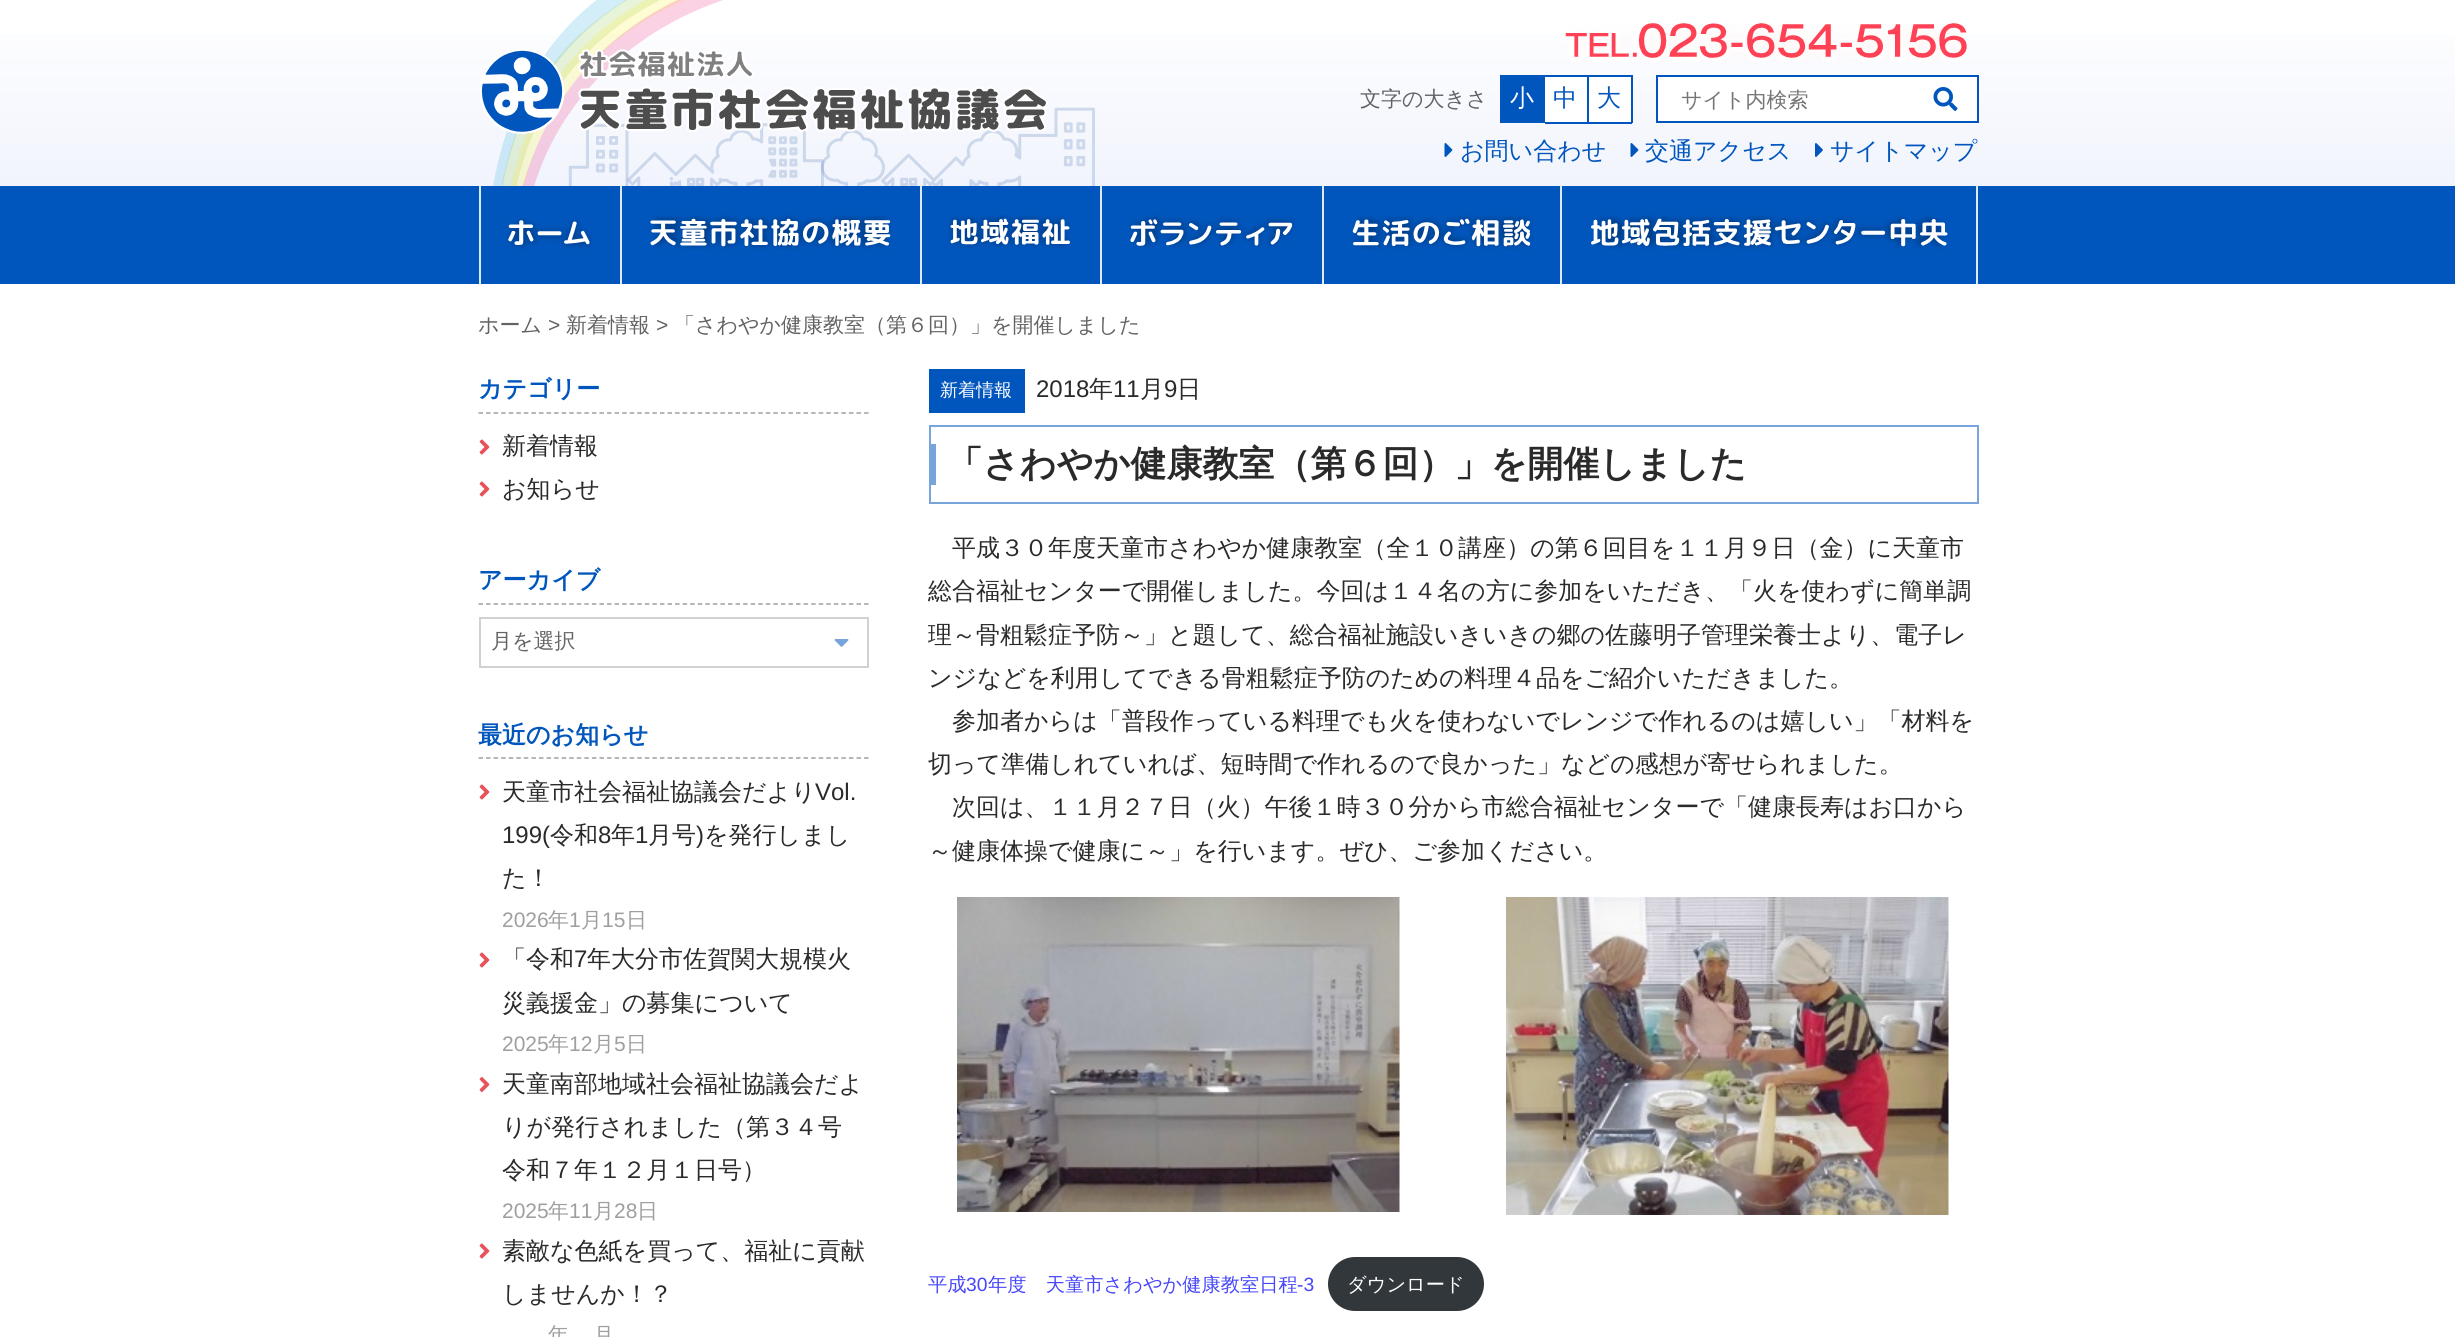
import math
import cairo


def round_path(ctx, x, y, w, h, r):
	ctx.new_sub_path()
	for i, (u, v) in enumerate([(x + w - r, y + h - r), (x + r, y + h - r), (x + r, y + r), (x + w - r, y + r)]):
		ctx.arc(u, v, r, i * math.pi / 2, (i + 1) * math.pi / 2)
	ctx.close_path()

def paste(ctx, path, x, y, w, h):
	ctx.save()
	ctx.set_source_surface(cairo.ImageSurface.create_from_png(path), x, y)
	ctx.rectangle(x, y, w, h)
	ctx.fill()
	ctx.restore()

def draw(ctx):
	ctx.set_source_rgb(1, 1, 1)
	ctx.paint()
	gradient = cairo.LinearGradient(1228, 0, 1228, 284)
	gradient.add_color_stop_rgba(0, 1, 1, 1, 1)
	gradient.add_color_stop_rgba(0.9, 0.925, 0.941, 0.988, 1)
	ctx.set_source(gradient)
	ctx.rectangle(0, 34, 2455, 152)
	ctx.fill()
	paste(ctx, 'media/1.png', 493, 0, 602, 186)
	paste(ctx, 'media/2.png', 480, 49, 568, 85)
	paste(ctx, 'media/3.png', 1565, 23, 402, 39)
	ctx.select_font_face('WenQuanYi Zen Hei Medium')
	ctx.set_font_size(21)
	ctx.set_source_rgb(0.388, 0.388, 0.392)
	ctx.move_to(1360, 106)
	ctx.show_text('文字の大きさ')
	ctx.set_source_rgb(0.004, 0.337, 0.741)
	ctx.rectangle(1500, 75, 45, 48)
	ctx.fill()
	ctx.set_font_size(24)
	ctx.set_source_rgb(1, 1, 1)
	ctx.move_to(1510, 106)
	ctx.show_text('小')
	ctx.rectangle(1545, 77, 42, 45)
	ctx.fill()
	ctx.set_source_rgb(0.004, 0.337, 0.741)
	ctx.rectangle(1545, 75, 87, 2)
	ctx.rectangle(1587, 75, 2, 48)
	ctx.rectangle(1545, 122, 44, 2)
	ctx.fill()
	ctx.move_to(1553, 106)
	ctx.show_text('中')
	ctx.set_source_rgb(1, 1, 1)
	ctx.rectangle(1589, 77, 42, 45)
	ctx.fill()
	ctx.set_source_rgb(0.004, 0.337, 0.741)
	ctx.rectangle(1631, 75, 2, 48)
	ctx.rectangle(1589, 122, 43, 2)
	ctx.fill()
	ctx.move_to(1597, 106)
	ctx.show_text('大')
	ctx.set_source_rgb(1, 1, 1)
	ctx.rectangle(1657, 76, 321, 46)
	ctx.fill_preserve()
	ctx.set_source_rgb(0.004, 0.337, 0.741)
	ctx.stroke()
	ctx.set_font_size(21)
	ctx.set_source_rgb(0.459, 0.459, 0.459)
	ctx.move_to(1681, 107)
	ctx.show_text('サイト内検索')
	paste(ctx, 'media/4.png', 1933, 87, 25, 24)
	paste(ctx, 'media/5.png', 1444, 143, 9, 14)
	ctx.set_font_size(24)
	ctx.set_source_rgb(0.004, 0.337, 0.741)
	ctx.move_to(1460, 159)
	ctx.show_text('お問い合わせ')
	paste(ctx, 'media/5.png', 1630, 143, 9, 14)
	ctx.move_to(1645, 159)
	ctx.show_text('交通アクセス')
	paste(ctx, 'media/6.png', 1815, 143, 8, 14)
	ctx.move_to(1830, 159)
	ctx.show_text('サイトマップ')
	ctx.rectangle(0, 186, 2455, 98)
	ctx.fill()
	ctx.set_source_rgb(0.871, 0.914, 0.965)
	ctx.rectangle(479, 186, 2, 98)
	ctx.rectangle(620, 186, 2, 98)
	ctx.fill()
	paste(ctx, 'media/7.png', 506, 217, 87, 33)
	ctx.rectangle(920, 186, 2, 98)
	ctx.fill()
	paste(ctx, 'media/8.png', 650, 215, 242, 35)
	ctx.rectangle(1100, 186, 2, 98)
	ctx.fill()
	paste(ctx, 'media/9.png', 947, 215, 124, 33)
	ctx.rectangle(1322, 186, 2, 98)
	ctx.fill()
	paste(ctx, 'media/10.png', 1129, 215, 167, 34)
	ctx.rectangle(1560, 186, 2, 98)
	ctx.fill()
	paste(ctx, 'media/11.png', 1352, 215, 181, 35)
	ctx.rectangle(1976, 186, 2, 98)
	ctx.fill()
	paste(ctx, 'media/12.png', 1591, 215, 357, 35)
	ctx.set_font_size(21)
	ctx.set_source_rgb(0.388, 0.388, 0.392)
	ctx.move_to(478, 332)
	ctx.show_text('ホーム')
	ctx.select_font_face('Liberation Sans')
	ctx.move_to(548, 332)
	ctx.show_text('>')
	ctx.select_font_face('WenQuanYi Zen Hei Medium')
	ctx.move_to(566, 332)
	ctx.show_text('新着情報')
	ctx.select_font_face('Liberation Sans')
	ctx.move_to(656, 332)
	ctx.show_text('>')
	ctx.select_font_face('WenQuanYi Zen Hei Medium')
	ctx.move_to(674, 332)
	ctx.show_text('「さわやか健康教室（第６回）」を開催しました')
	ctx.new_path()
	ctx.move_to(478.5, 413)
	ctx.line_to(868.5, 413)
	ctx.set_source_rgb(0.624, 0.624, 0.624)
	ctx.set_line_width(1.5)
	ctx.set_dash([4.5, 3.06])
	ctx.stroke()
	ctx.select_font_face('WenQuanYi Zen Hei', cairo.FONT_SLANT_NORMAL, cairo.FONT_WEIGHT_BOLD)
	ctx.set_font_size(24)
	ctx.set_source_rgb(0.004, 0.337, 0.741)
	ctx.move_to(478, 397)
	ctx.show_text('カテゴリー')
	paste(ctx, 'media/13.png', 479, 439, 11, 16)
	ctx.select_font_face('WenQuanYi Zen Hei Medium')
	ctx.set_source_rgb(0.165, 0.165, 0.165)
	ctx.move_to(502, 454)
	ctx.show_text('新着情報')
	paste(ctx, 'media/13.png', 479, 481, 11, 16)
	ctx.move_to(502, 497)
	ctx.show_text('お知らせ')
	ctx.new_path()
	ctx.move_to(478.5, 604)
	ctx.line_to(868.5, 604)
	ctx.set_source_rgb(0.624, 0.624, 0.624)
	ctx.stroke()
	ctx.select_font_face('WenQuanYi Zen Hei', cairo.FONT_SLANT_NORMAL, cairo.FONT_WEIGHT_BOLD)
	ctx.set_source_rgb(0.004, 0.337, 0.741)
	ctx.move_to(478, 588)
	ctx.show_text('アーカイブ')
	paste(ctx, 'media/14.png', 834, 639, 15, 8)
	ctx.rectangle(480, 618, 388, 49)
	ctx.set_source_rgb(0.82, 0.82, 0.82)
	ctx.set_line_width(2)
	ctx.set_dash([])
	ctx.stroke()
	ctx.select_font_face('WenQuanYi Zen Hei Medium')
	ctx.set_font_size(21)
	ctx.set_source_rgb(0.388, 0.388, 0.392)
	ctx.move_to(491, 648)
	ctx.show_text('月を選択')
	ctx.new_path()
	ctx.move_to(478.5, 758)
	ctx.line_to(868.5, 758)
	ctx.set_source_rgb(0.624, 0.624, 0.624)
	ctx.set_line_width(1.5)
	ctx.set_dash([4.5, 3.06])
	ctx.stroke()
	ctx.select_font_face('WenQuanYi Zen Hei', cairo.FONT_SLANT_NORMAL, cairo.FONT_WEIGHT_BOLD)
	ctx.set_font_size(24)
	ctx.set_source_rgb(0.004, 0.337, 0.741)
	ctx.move_to(478, 743)
	ctx.show_text('最近のお知らせ')
	paste(ctx, 'media/13.png', 479, 784, 11, 16)
	ctx.select_font_face('WenQuanYi Zen Hei Medium')
	ctx.set_source_rgb(0.165, 0.165, 0.165)
	ctx.move_to(502, 800)
	ctx.show_text('天童市社会福祉協議会だより')
	ctx.select_font_face('Liberation Sans')
	ctx.move_to(815, 800)
	ctx.show_text('Vol.')
	ctx.move_to(502, 843)
	ctx.show_text('199(')
	ctx.select_font_face('WenQuanYi Zen Hei Medium')
	ctx.move_to(550, 843)
	ctx.show_text('令和')
	ctx.select_font_face('Liberation Sans')
	ctx.move_to(598, 843)
	ctx.show_text('8')
	ctx.select_font_face('WenQuanYi Zen Hei Medium')
	ctx.move_to(611, 843)
	ctx.show_text('年')
	ctx.select_font_face('Liberation Sans')
	ctx.move_to(635, 843)
	ctx.show_text('1')
	ctx.select_font_face('WenQuanYi Zen Hei Medium')
	ctx.move_to(648, 843)
	ctx.show_text('月号')
	ctx.select_font_face('Liberation Sans')
	ctx.move_to(696, 843)
	ctx.show_text(')')
	ctx.select_font_face('WenQuanYi Zen Hei Medium')
	ctx.move_to(704, 843)
	ctx.show_text('を発行しまし')
	ctx.move_to(502, 886)
	ctx.show_text('た！')
	ctx.select_font_face('Liberation Sans')
	ctx.set_font_size(21)
	ctx.set_source_rgb(0.624, 0.624, 0.624)
	ctx.move_to(502, 927)
	ctx.show_text('2026')
	ctx.select_font_face('WenQuanYi Zen Hei Medium')
	ctx.move_to(548, 927)
	ctx.show_text('年')
	ctx.select_font_face('Liberation Sans')
	ctx.move_to(569, 927)
	ctx.show_text('1')
	ctx.select_font_face('WenQuanYi Zen Hei Medium')
	ctx.move_to(581, 927)
	ctx.show_text('月')
	ctx.select_font_face('Liberation Sans')
	ctx.move_to(602, 927)
	ctx.show_text('15')
	ctx.select_font_face('WenQuanYi Zen Hei Medium')
	ctx.move_to(626, 927)
	ctx.show_text('日')
	paste(ctx, 'media/13.png', 479, 952, 11, 16)
	ctx.set_font_size(24)
	ctx.set_source_rgb(0.165, 0.165, 0.165)
	ctx.move_to(502, 967)
	ctx.show_text('「令和')
	ctx.select_font_face('Liberation Sans')
	ctx.move_to(574, 967)
	ctx.show_text('7')
	ctx.select_font_face('WenQuanYi Zen Hei Medium')
	ctx.move_to(587, 967)
	ctx.show_text('年大分市佐賀関大規模火')
	ctx.move_to(502, 1011)
	ctx.show_text('災義援金」の募集について')
	ctx.select_font_face('Liberation Sans')
	ctx.set_font_size(21)
	ctx.set_source_rgb(0.624, 0.624, 0.624)
	ctx.move_to(502, 1051)
	ctx.show_text('2025')
	ctx.select_font_face('WenQuanYi Zen Hei Medium')
	ctx.move_to(548, 1051)
	ctx.show_text('年')
	ctx.select_font_face('Liberation Sans')
	ctx.move_to(569, 1051)
	ctx.show_text('12')
	ctx.select_font_face('WenQuanYi Zen Hei Medium')
	ctx.move_to(593, 1051)
	ctx.show_text('月')
	ctx.select_font_face('Liberation Sans')
	ctx.move_to(614, 1051)
	ctx.show_text('5')
	ctx.select_font_face('WenQuanYi Zen Hei Medium')
	ctx.move_to(626, 1051)
	ctx.show_text('日')
	paste(ctx, 'media/15.png', 479, 1077, 11, 15)
	ctx.set_font_size(24)
	ctx.set_source_rgb(0.165, 0.165, 0.165)
	for x, y, s in [
		(502, 1092, '天童南部地域社会福祉協議会だよ'),
		(502, 1135, 'りが発行されました（第３４号'),
		(502, 1178, '令和７年１２月１日号）'),
	]:
		ctx.move_to(x, y)
		ctx.show_text(s)
	ctx.select_font_face('Liberation Sans')
	ctx.set_font_size(21)
	ctx.set_source_rgb(0.624, 0.624, 0.624)
	ctx.move_to(502, 1218)
	ctx.show_text('2025')
	ctx.select_font_face('WenQuanYi Zen Hei Medium')
	ctx.move_to(548, 1218)
	ctx.show_text('年')
	ctx.select_font_face('Liberation Sans')
	ctx.move_to(569, 1218)
	ctx.show_text('11')
	ctx.select_font_face('WenQuanYi Zen Hei Medium')
	ctx.move_to(593, 1218)
	ctx.show_text('月')
	ctx.select_font_face('Liberation Sans')
	ctx.move_to(614, 1218)
	ctx.show_text('28')
	ctx.select_font_face('WenQuanYi Zen Hei Medium')
	ctx.move_to(637, 1218)
	ctx.show_text('日')
	paste(ctx, 'media/13.png', 479, 1243, 11, 16)
	ctx.set_font_size(24)
	ctx.set_source_rgb(0.165, 0.165, 0.165)
	ctx.move_to(502, 1259)
	ctx.show_text('素敵な色紙を買って、福祉に貢献')
	ctx.move_to(502, 1302)
	ctx.show_text('しませんか！？')
	ctx.set_font_size(21)
	ctx.set_source_rgb(0.624, 0.624, 0.624)
	ctx.move_to(548, 1342)
	ctx.show_text('年')
	ctx.move_to(593, 1342)
	ctx.show_text('月')
	ctx.set_source_rgb(0.004, 0.337, 0.741)
	ctx.rectangle(929, 369, 96, 44)
	ctx.fill()
	ctx.set_font_size(18)
	ctx.set_source_rgb(1, 1, 1)
	ctx.move_to(940, 396)
	ctx.show_text('新着情報')
	ctx.select_font_face('Liberation Sans')
	ctx.set_font_size(24)
	ctx.set_source_rgb(0.165, 0.165, 0.165)
	ctx.move_to(1036, 397)
	ctx.show_text('2018')
	ctx.select_font_face('WenQuanYi Zen Hei Medium')
	ctx.move_to(1089, 397)
	ctx.show_text('年')
	ctx.select_font_face('Liberation Sans')
	ctx.move_to(1113, 397)
	ctx.show_text('11')
	ctx.select_font_face('WenQuanYi Zen Hei Medium')
	ctx.move_to(1140, 397)
	ctx.show_text('月')
	ctx.select_font_face('Liberation Sans')
	ctx.move_to(1164, 397)
	ctx.show_text('9')
	ctx.select_font_face('WenQuanYi Zen Hei Medium')
	ctx.move_to(1177, 397)
	ctx.show_text('日')
	ctx.rectangle(930, 426, 1048, 77)
	ctx.set_source_rgb(0.463, 0.643, 0.859)
	ctx.set_line_width(2)
	ctx.set_dash([])
	ctx.stroke()
	ctx.rectangle(931, 444, 5, 41)
	ctx.fill()
	ctx.select_font_face('WenQuanYi Zen Hei', cairo.FONT_SLANT_NORMAL, cairo.FONT_WEIGHT_BOLD)
	ctx.set_font_size(36)
	ctx.set_source_rgb(0.165, 0.165, 0.165)
	ctx.move_to(947, 476)
	ctx.show_text('「さわやか健康教室（第６回）」を開催しました')
	ctx.select_font_face('WenQuanYi Zen Hei Medium')
	ctx.set_font_size(24)
	for x, y, s in [
		(952, 556, '平成３０年度天童市さわやか健康教室（全１０講座）の第６回目を１１月９日（金）に天童市'),
		(928, 599, '総合福祉センターで開催しました。今回は１４名の方に参加をいただき、「火を使わずに簡単調'),
		(928, 643, '理～骨粗鬆症予防～」と題して、総合福祉施設いきいきの郷の佐藤明子管理栄養士より、電子レ'),
		(928, 686, 'ンジなどを利用してできる骨粗鬆症予防のための料理４品をご紹介いただきました。'),
		(952, 729, '参加者からは「普段作っている料理でも火を使わないでレンジで作れるのは嬉しい」「材料を'),
		(928, 772, '切って準備しれていれば、短時間で作れるので良かった」などの感想が寄せられました。'),
		(952, 815, '次回は、１１月２７日（火）午後１時３０分から市総合福祉センターで「健康長寿はお口から'),
		(928, 859, '～健康体操で健康に～」を行います。ぜひ、ご参加ください。'),
	]:
		ctx.move_to(x, y)
		ctx.show_text(s)
	paste(ctx, 'media/16.png', 957, 897, 443, 315)
	paste(ctx, 'media/17.png', 1506, 897, 443, 318)
	ctx.set_font_size(19.25)
	ctx.set_source_rgb(0.275, 0.275, 0.98)
	ctx.move_to(928, 1291)
	ctx.show_text('平成')
	ctx.select_font_face('Liberation Sans')
	ctx.move_to(966, 1291)
	ctx.show_text('30')
	ctx.select_font_face('WenQuanYi Zen Hei Medium')
	ctx.move_to(988, 1291)
	ctx.show_text('年度　天童市さわやか健康教室日程')
	ctx.select_font_face('Liberation Sans')
	ctx.move_to(1297, 1291)
	ctx.show_text('-3')
	ctx.set_source_rgb(0.196, 0.216, 0.235)
	round_path(ctx, 1328, 1257, 156, 54, 27)
	ctx.fill()
	ctx.select_font_face('WenQuanYi Zen Hei Medium')
	ctx.set_source_rgb(1, 1, 1)
	ctx.move_to(1347, 1291)
	ctx.show_text('ダウンロード')


surface = cairo.ImageSurface(cairo.FORMAT_RGB24, 2455, 1337)
ctx = cairo.Context(surface)
options = cairo.FontOptions()
options.set_hint_metrics(cairo.HINT_METRICS_OFF)
options.set_hint_style(cairo.HINT_STYLE_NONE)
ctx.set_font_options(options)
ctx.set_miter_limit(4)
draw(ctx)
surface.write_to_png('image.png')
